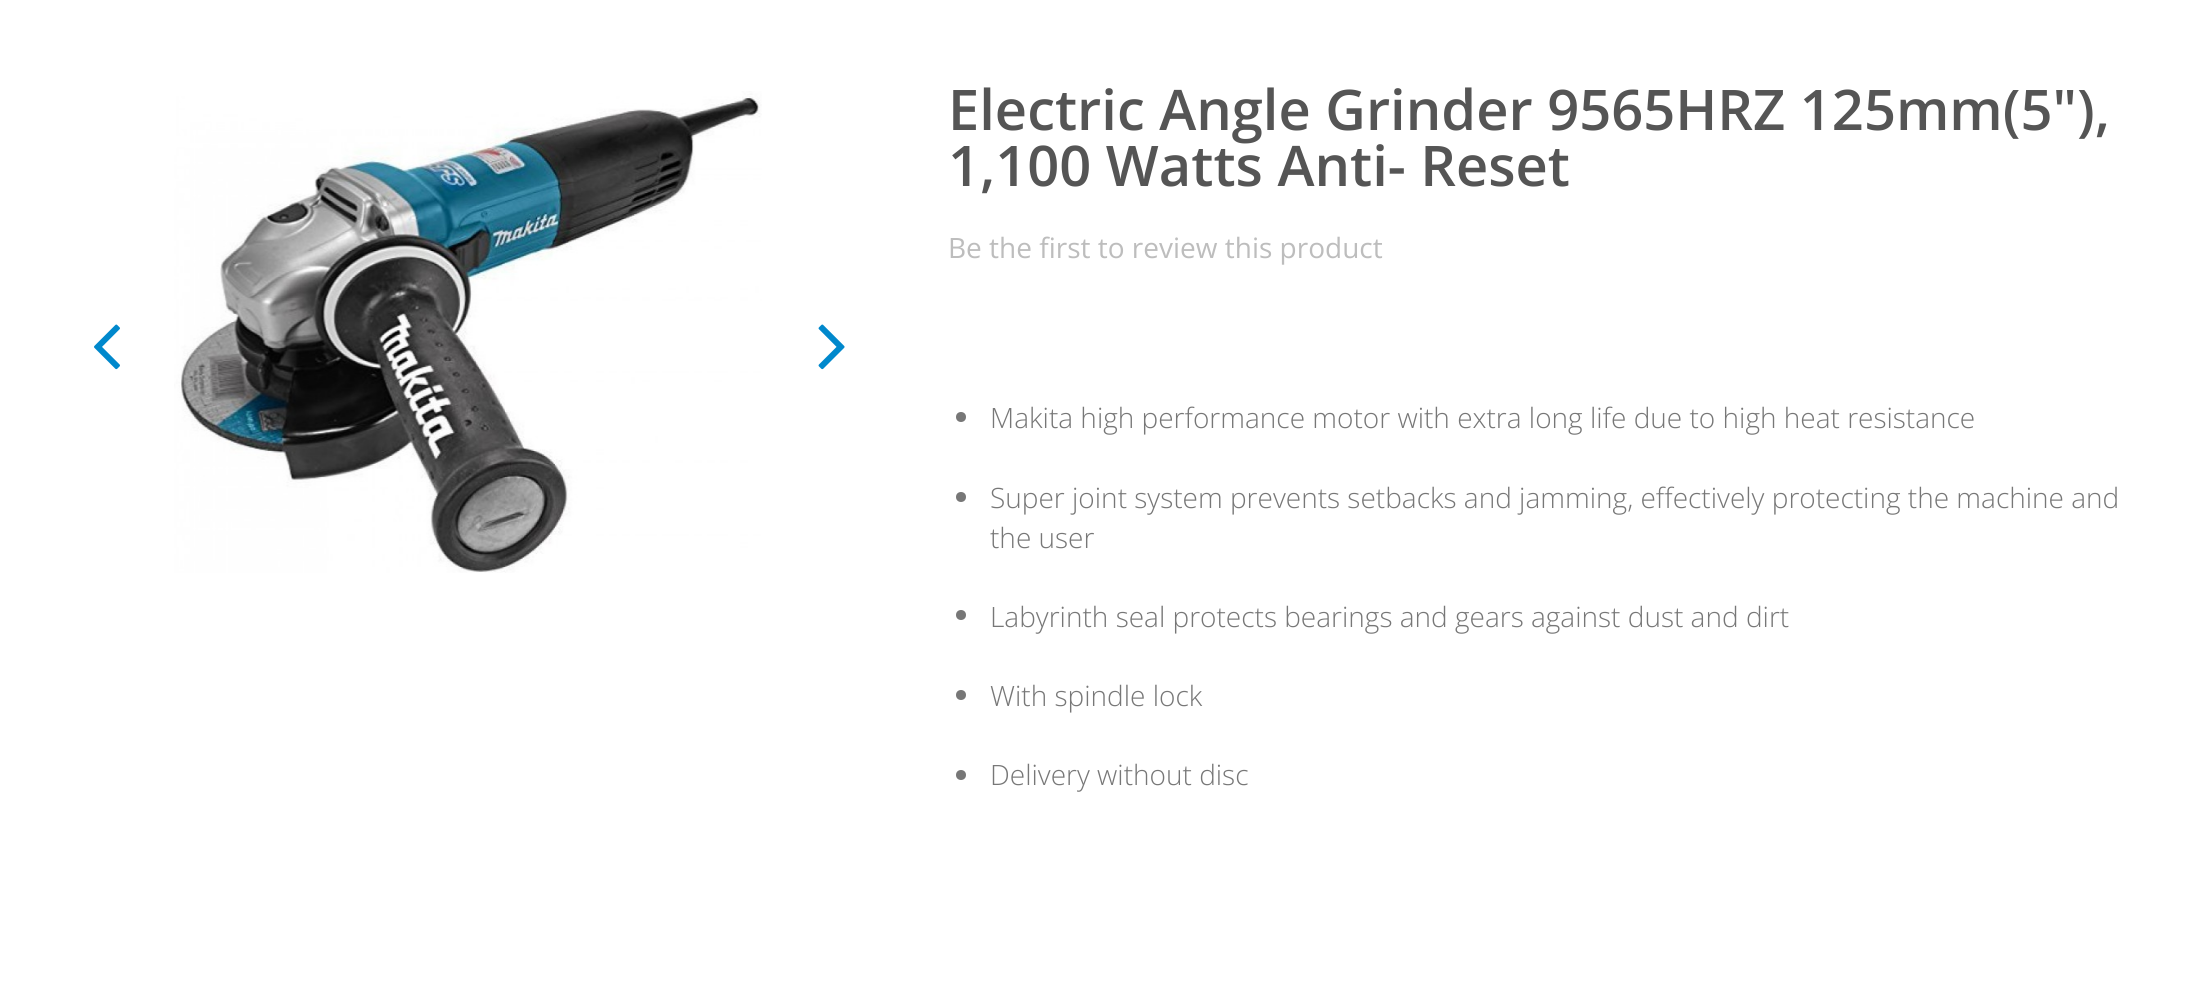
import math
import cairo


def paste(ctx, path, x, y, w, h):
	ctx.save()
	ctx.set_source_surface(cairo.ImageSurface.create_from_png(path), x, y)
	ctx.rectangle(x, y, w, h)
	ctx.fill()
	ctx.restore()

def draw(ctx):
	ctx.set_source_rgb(1, 1, 1)
	ctx.paint()
	paste(ctx, 'media/1.png', 174, 91, 588, 482)
	paste(ctx, 'media/2.png', 94, 324, 26, 46)
	paste(ctx, 'media/3.png', 818, 324, 27, 46)
	ctx.select_font_face('Open Sans SemiBold')
	ctx.set_font_size(56)
	ctx.set_source_rgb(0.333, 0.333, 0.333)
	ctx.move_to(948, 130)
	ctx.show_text('Electric Angle Grinder 9565HRZ 125mm(5"),')
	ctx.move_to(948, 186)
	ctx.show_text('1,100 Watts Anti- Reset')
	ctx.select_font_face('Open Sans')
	ctx.set_font_size(28)
	ctx.set_source_rgb(0.741, 0.741, 0.741)
	ctx.move_to(948, 258)
	ctx.show_text('Be the first to review this product')
	ctx.set_source_rgb(0.467, 0.467, 0.467)
	ctx.new_path()
	ctx.arc(961, 417, 5, 0, 2 * math.pi)
	ctx.fill()
	ctx.select_font_face('Open Sans Light')
	ctx.move_to(990, 428)
	ctx.show_text('Makita high performance motor with extra long life due to high heat resistance')
	ctx.new_path()
	ctx.arc(961, 497, 5, 0, 2 * math.pi)
	ctx.fill()
	ctx.move_to(990, 508)
	ctx.show_text('Super joint system prevents setbacks and jamming, effectively protecting the machine and')
	ctx.move_to(990, 548)
	ctx.show_text('the user')
	ctx.new_path()
	ctx.arc(961, 615, 5, 0, 2 * math.pi)
	ctx.fill()
	ctx.move_to(990, 627)
	ctx.show_text('Labyrinth seal protects bearings and gears against dust and dirt')
	ctx.new_path()
	ctx.arc(961, 695, 5, 0, 2 * math.pi)
	ctx.fill()
	ctx.move_to(990, 706)
	ctx.show_text('With spindle lock')
	ctx.new_path()
	ctx.arc(961, 775, 5, 0, 2 * math.pi)
	ctx.fill()
	ctx.move_to(990, 785)
	ctx.show_text('Delivery without disc')


surface = cairo.ImageSurface(cairo.FORMAT_RGB24, 2195, 987)
ctx = cairo.Context(surface)
options = cairo.FontOptions()
options.set_hint_metrics(cairo.HINT_METRICS_OFF)
options.set_hint_style(cairo.HINT_STYLE_NONE)
ctx.set_font_options(options)
ctx.set_miter_limit(4)
draw(ctx)
surface.write_to_png('image.png')
